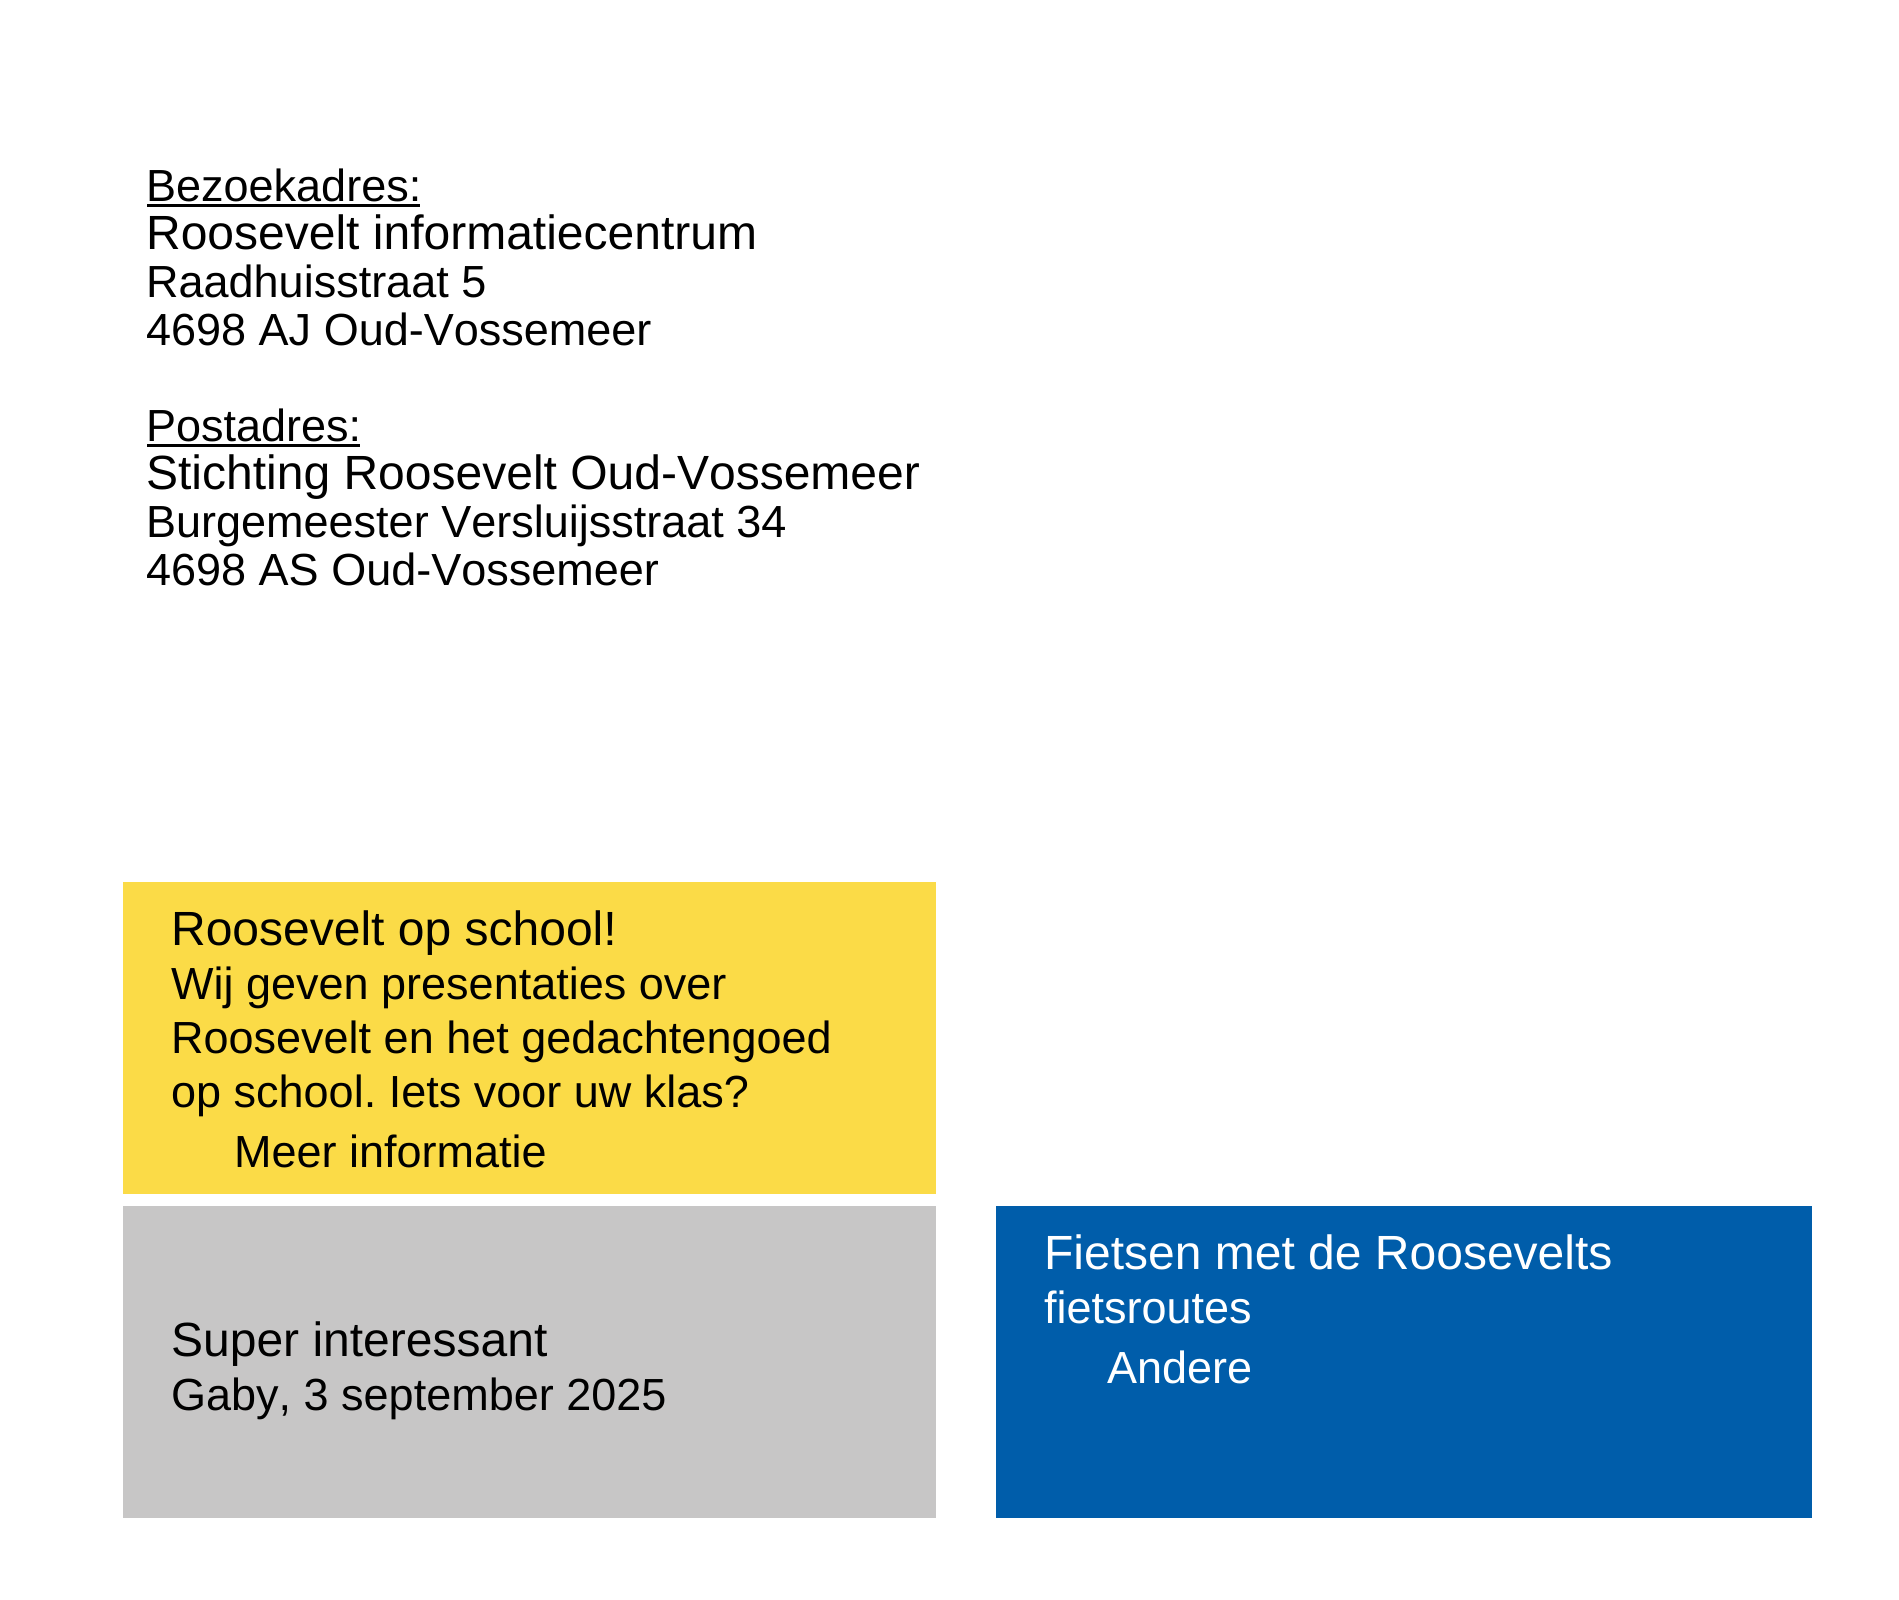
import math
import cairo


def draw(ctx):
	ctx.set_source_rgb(1, 1, 1)
	ctx.paint()
	ctx.select_font_face('Liberation Sans')
	ctx.set_font_size(45)
	ctx.set_source_rgb(0, 0, 0)
	ctx.move_to(146, 201)
	ctx.show_text('Bezoekadres:')
	ctx.rectangle(147, 204, 273, 3)
	ctx.fill()
	ctx.set_font_size(48)
	ctx.move_to(146, 249)
	ctx.show_text('Roosevelt informatiecentrum')
	ctx.set_font_size(45)
	for x, y, s in [
		(146, 297, 'Raadhuisstraat 5'),
		(146, 345, '4698 AJ Oud-Vossemeer'),
		(146, 441, 'Postadres:'),
	]:
		ctx.move_to(x, y)
		ctx.show_text(s)
	ctx.rectangle(147, 444, 213, 3)
	ctx.fill()
	ctx.set_font_size(48)
	ctx.move_to(146, 489)
	ctx.show_text('Stichting Roosevelt Oud-Vossemeer')
	ctx.set_font_size(45)
	ctx.move_to(146, 537)
	ctx.show_text('Burgemeester Versluijsstraat 34')
	ctx.move_to(146, 585)
	ctx.show_text('4698 AS Oud-Vossemeer')
	ctx.set_source_rgb(0.984, 0.859, 0.278)
	ctx.rectangle(123, 882, 813, 312)
	ctx.fill()
	ctx.set_font_size(48)
	ctx.set_source_rgb(0, 0, 0)
	ctx.move_to(171, 945)
	ctx.show_text('Roosevelt op school!')
	ctx.set_font_size(45)
	for x, y, s in [
		(171, 999, 'Wij geven presentaties over'),
		(171, 1053, 'Roosevelt en het gedachtengoed'),
		(171, 1107, 'op school. Iets voor uw klas?'),
		(234, 1167, 'Meer informatie'),
	]:
		ctx.move_to(x, y)
		ctx.show_text(s)
	ctx.set_source_rgb(0.78, 0.776, 0.776)
	ctx.rectangle(123, 1206, 813, 312)
	ctx.fill()
	ctx.set_font_size(48)
	ctx.set_source_rgb(0, 0, 0)
	ctx.move_to(171, 1356)
	ctx.show_text('Super interessant')
	ctx.set_font_size(45)
	ctx.move_to(171, 1410)
	ctx.show_text('Gaby, 3 september 2025')
	ctx.set_source_rgb(0, 0.365, 0.667)
	ctx.rectangle(996, 1206, 816, 312)
	ctx.fill()
	ctx.set_font_size(48)
	ctx.set_source_rgb(1, 1, 1)
	ctx.move_to(1044, 1269)
	ctx.show_text('Fietsen met de Roosevelts')
	ctx.set_font_size(45)
	ctx.move_to(1044, 1323)
	ctx.show_text('fietsroutes')
	ctx.move_to(1107, 1383)
	ctx.show_text('Andere')


surface = cairo.ImageSurface(cairo.FORMAT_RGB24, 1899, 1600)
ctx = cairo.Context(surface)
options = cairo.FontOptions()
options.set_hint_metrics(cairo.HINT_METRICS_OFF)
options.set_hint_style(cairo.HINT_STYLE_NONE)
ctx.set_font_options(options)
ctx.set_miter_limit(4)
draw(ctx)
surface.write_to_png('image.png')
